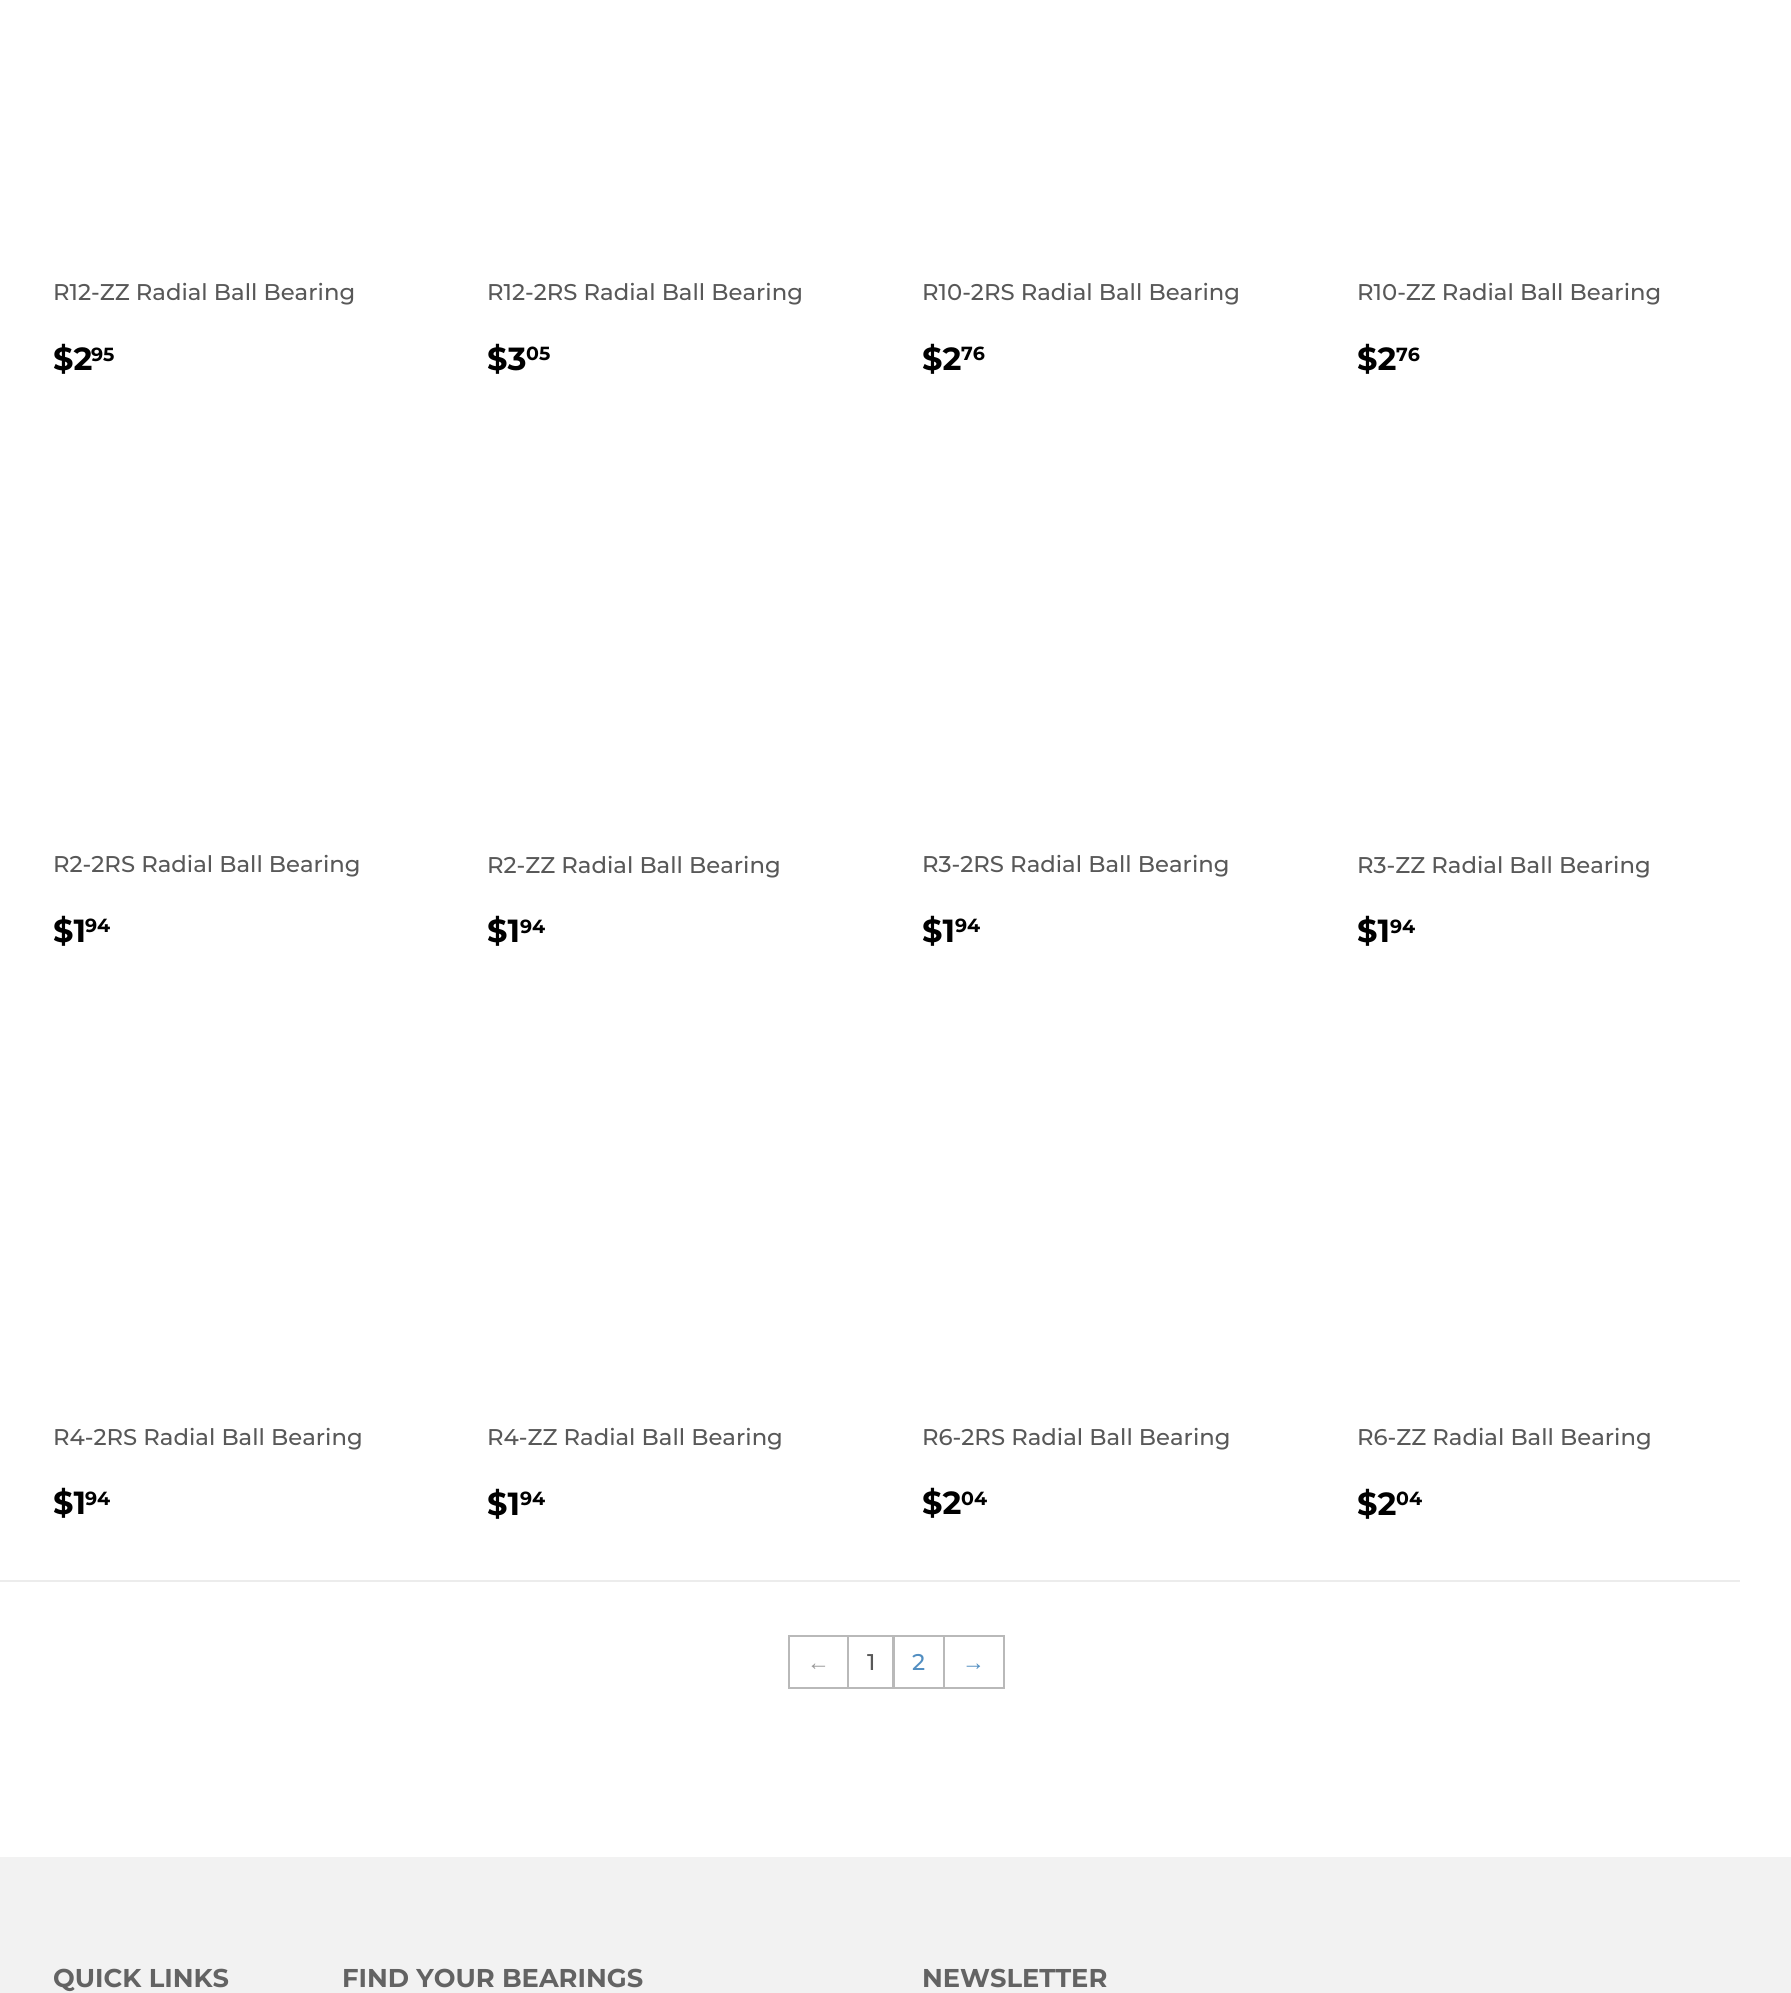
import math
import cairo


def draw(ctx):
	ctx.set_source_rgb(1, 1, 1)
	ctx.paint()
	ctx.select_font_face('Montserrat Medium')
	ctx.set_font_size(22.75)
	ctx.set_source_rgb(0.345, 0.345, 0.345)
	ctx.move_to(53, 300)
	ctx.show_text('R12-ZZ Radial Ball Bearing')
	ctx.select_font_face('Montserrat', cairo.FONT_SLANT_NORMAL, cairo.FONT_WEIGHT_BOLD)
	ctx.set_font_size(32)
	ctx.set_source_rgb(0, 0, 0)
	ctx.move_to(53, 370)
	ctx.show_text('$2')
	ctx.set_font_size(19)
	ctx.move_to(91, 361)
	ctx.show_text('95')
	ctx.select_font_face('Montserrat Medium')
	ctx.set_font_size(22.75)
	ctx.set_source_rgb(0.345, 0.345, 0.345)
	ctx.move_to(487, 300)
	ctx.show_text('R12-2RS Radial Ball Bearing')
	ctx.select_font_face('Montserrat', cairo.FONT_SLANT_NORMAL, cairo.FONT_WEIGHT_BOLD)
	ctx.set_font_size(32)
	ctx.set_source_rgb(0, 0, 0)
	ctx.move_to(487, 370)
	ctx.show_text('$3')
	ctx.set_font_size(19)
	ctx.move_to(526, 360)
	ctx.show_text('05')
	ctx.select_font_face('Montserrat Medium')
	ctx.set_font_size(22.75)
	ctx.set_source_rgb(0.345, 0.345, 0.345)
	ctx.move_to(922, 300)
	ctx.show_text('R10-2RS Radial Ball Bearing')
	ctx.select_font_face('Montserrat', cairo.FONT_SLANT_NORMAL, cairo.FONT_WEIGHT_BOLD)
	ctx.set_font_size(32)
	ctx.set_source_rgb(0, 0, 0)
	ctx.move_to(922, 370)
	ctx.show_text('$2')
	ctx.set_font_size(19)
	ctx.move_to(961, 360)
	ctx.show_text('76')
	ctx.select_font_face('Montserrat Medium')
	ctx.set_font_size(22.75)
	ctx.set_source_rgb(0.345, 0.345, 0.345)
	ctx.move_to(1357, 300)
	ctx.show_text('R10-ZZ Radial Ball Bearing')
	ctx.select_font_face('Montserrat', cairo.FONT_SLANT_NORMAL, cairo.FONT_WEIGHT_BOLD)
	ctx.set_font_size(32)
	ctx.set_source_rgb(0, 0, 0)
	ctx.move_to(1357, 370)
	ctx.show_text('$2')
	ctx.set_font_size(19)
	ctx.move_to(1396, 361)
	ctx.show_text('76')
	ctx.select_font_face('Montserrat Medium')
	ctx.set_font_size(22.75)
	ctx.set_source_rgb(0.345, 0.345, 0.345)
	ctx.move_to(53, 872)
	ctx.show_text('R2-2RS Radial Ball Bearing')
	ctx.select_font_face('Montserrat', cairo.FONT_SLANT_NORMAL, cairo.FONT_WEIGHT_BOLD)
	ctx.set_font_size(32)
	ctx.set_source_rgb(0, 0, 0)
	ctx.move_to(53, 942)
	ctx.show_text('$1')
	ctx.set_font_size(19)
	ctx.move_to(85, 932)
	ctx.show_text('94')
	ctx.select_font_face('Montserrat Medium')
	ctx.set_font_size(22.75)
	ctx.set_source_rgb(0.345, 0.345, 0.345)
	ctx.move_to(487, 873)
	ctx.show_text('R2-ZZ Radial Ball Bearing')
	ctx.select_font_face('Montserrat', cairo.FONT_SLANT_NORMAL, cairo.FONT_WEIGHT_BOLD)
	ctx.set_font_size(32)
	ctx.set_source_rgb(0, 0, 0)
	ctx.move_to(487, 942)
	ctx.show_text('$1')
	ctx.set_font_size(19)
	ctx.move_to(520, 933)
	ctx.show_text('94')
	ctx.select_font_face('Montserrat Medium')
	ctx.set_font_size(22.75)
	ctx.set_source_rgb(0.345, 0.345, 0.345)
	ctx.move_to(922, 872)
	ctx.show_text('R3-2RS Radial Ball Bearing')
	ctx.select_font_face('Montserrat', cairo.FONT_SLANT_NORMAL, cairo.FONT_WEIGHT_BOLD)
	ctx.set_font_size(32)
	ctx.set_source_rgb(0, 0, 0)
	ctx.move_to(922, 942)
	ctx.show_text('$1')
	ctx.set_font_size(19)
	ctx.move_to(955, 932)
	ctx.show_text('94')
	ctx.select_font_face('Montserrat Medium')
	ctx.set_font_size(22.75)
	ctx.set_source_rgb(0.345, 0.345, 0.345)
	ctx.move_to(1357, 873)
	ctx.show_text('R3-ZZ Radial Ball Bearing')
	ctx.select_font_face('Montserrat', cairo.FONT_SLANT_NORMAL, cairo.FONT_WEIGHT_BOLD)
	ctx.set_font_size(32)
	ctx.set_source_rgb(0, 0, 0)
	ctx.move_to(1357, 942)
	ctx.show_text('$1')
	ctx.set_font_size(19)
	ctx.move_to(1390, 933)
	ctx.show_text('94')
	ctx.select_font_face('Montserrat Medium')
	ctx.set_font_size(22.75)
	ctx.set_source_rgb(0.345, 0.345, 0.345)
	ctx.move_to(53, 1445)
	ctx.show_text('R4-2RS Radial Ball Bearing')
	ctx.select_font_face('Montserrat', cairo.FONT_SLANT_NORMAL, cairo.FONT_WEIGHT_BOLD)
	ctx.set_font_size(32)
	ctx.set_source_rgb(0, 0, 0)
	ctx.move_to(53, 1514)
	ctx.show_text('$1')
	ctx.set_font_size(19)
	ctx.move_to(85, 1505)
	ctx.show_text('94')
	ctx.select_font_face('Montserrat Medium')
	ctx.set_font_size(22.75)
	ctx.set_source_rgb(0.345, 0.345, 0.345)
	ctx.move_to(487, 1445)
	ctx.show_text('R4-ZZ Radial Ball Bearing')
	ctx.select_font_face('Montserrat', cairo.FONT_SLANT_NORMAL, cairo.FONT_WEIGHT_BOLD)
	ctx.set_font_size(32)
	ctx.set_source_rgb(0, 0, 0)
	ctx.move_to(487, 1515)
	ctx.show_text('$1')
	ctx.set_font_size(19)
	ctx.move_to(520, 1505)
	ctx.show_text('94')
	ctx.select_font_face('Montserrat Medium')
	ctx.set_font_size(22.75)
	ctx.set_source_rgb(0.345, 0.345, 0.345)
	ctx.move_to(922, 1445)
	ctx.show_text('R6-2RS Radial Ball Bearing')
	ctx.select_font_face('Montserrat', cairo.FONT_SLANT_NORMAL, cairo.FONT_WEIGHT_BOLD)
	ctx.set_font_size(32)
	ctx.set_source_rgb(0, 0, 0)
	ctx.move_to(922, 1514)
	ctx.show_text('$2')
	ctx.set_font_size(19)
	ctx.move_to(961, 1505)
	ctx.show_text('04')
	ctx.select_font_face('Montserrat Medium')
	ctx.set_font_size(22.75)
	ctx.set_source_rgb(0.345, 0.345, 0.345)
	ctx.move_to(1357, 1445)
	ctx.show_text('R6-ZZ Radial Ball Bearing')
	ctx.select_font_face('Montserrat', cairo.FONT_SLANT_NORMAL, cairo.FONT_WEIGHT_BOLD)
	ctx.set_font_size(32)
	ctx.set_source_rgb(0, 0, 0)
	ctx.move_to(1357, 1515)
	ctx.show_text('$2')
	ctx.set_font_size(19)
	ctx.move_to(1396, 1505)
	ctx.show_text('04')
	ctx.set_source_rgb(0.925, 0.925, 0.925)
	ctx.rectangle(0, 1580, 1740, 2)
	ctx.fill()
	ctx.rectangle(789, 1636, 59, 52)
	ctx.set_source_rgb(0.725, 0.725, 0.725)
	ctx.stroke()
	ctx.select_font_face('Liberation Sans')
	ctx.set_font_size(22.75)
	ctx.set_source_rgb(0.6, 0.6, 0.6)
	ctx.move_to(807, 1670)
	ctx.show_text('←')
	ctx.rectangle(894, 1636, 50, 52)
	ctx.set_source_rgb(0.725, 0.725, 0.725)
	ctx.stroke()
	ctx.rectangle(848, 1636, 45, 52)
	ctx.stroke()
	ctx.select_font_face('Montserrat Medium')
	ctx.set_source_rgb(0.345, 0.345, 0.345)
	ctx.move_to(867, 1670)
	ctx.show_text('1')
	ctx.set_source_rgb(0.322, 0.557, 0.757)
	ctx.move_to(912, 1670)
	ctx.show_text('2')
	ctx.rectangle(944, 1636, 60, 52)
	ctx.set_source_rgb(0.725, 0.725, 0.725)
	ctx.stroke()
	ctx.select_font_face('Liberation Sans')
	ctx.set_source_rgb(0.322, 0.557, 0.757)
	ctx.move_to(962, 1670)
	ctx.show_text('→')
	ctx.set_source_rgb(0.949, 0.949, 0.949)
	ctx.rectangle(0, 1857, 1791, 136)
	ctx.fill()
	ctx.select_font_face('Montserrat', cairo.FONT_SLANT_NORMAL, cairo.FONT_WEIGHT_BOLD)
	ctx.set_font_size(25.75)
	ctx.set_source_rgb(0.388, 0.388, 0.388)
	for x, y, s in [
		(53, 1987, 'QUICK LINKS'),
		(342, 1987, 'FIND YOUR BEARINGS'),
		(922, 1987, 'NEWSLETTER'),
	]:
		ctx.move_to(x, y)
		ctx.show_text(s)


surface = cairo.ImageSurface(cairo.FORMAT_RGB24, 1791, 1993)
ctx = cairo.Context(surface)
options = cairo.FontOptions()
options.set_hint_metrics(cairo.HINT_METRICS_OFF)
options.set_hint_style(cairo.HINT_STYLE_NONE)
ctx.set_font_options(options)
ctx.set_miter_limit(4)
draw(ctx)
surface.write_to_png('image.png')
